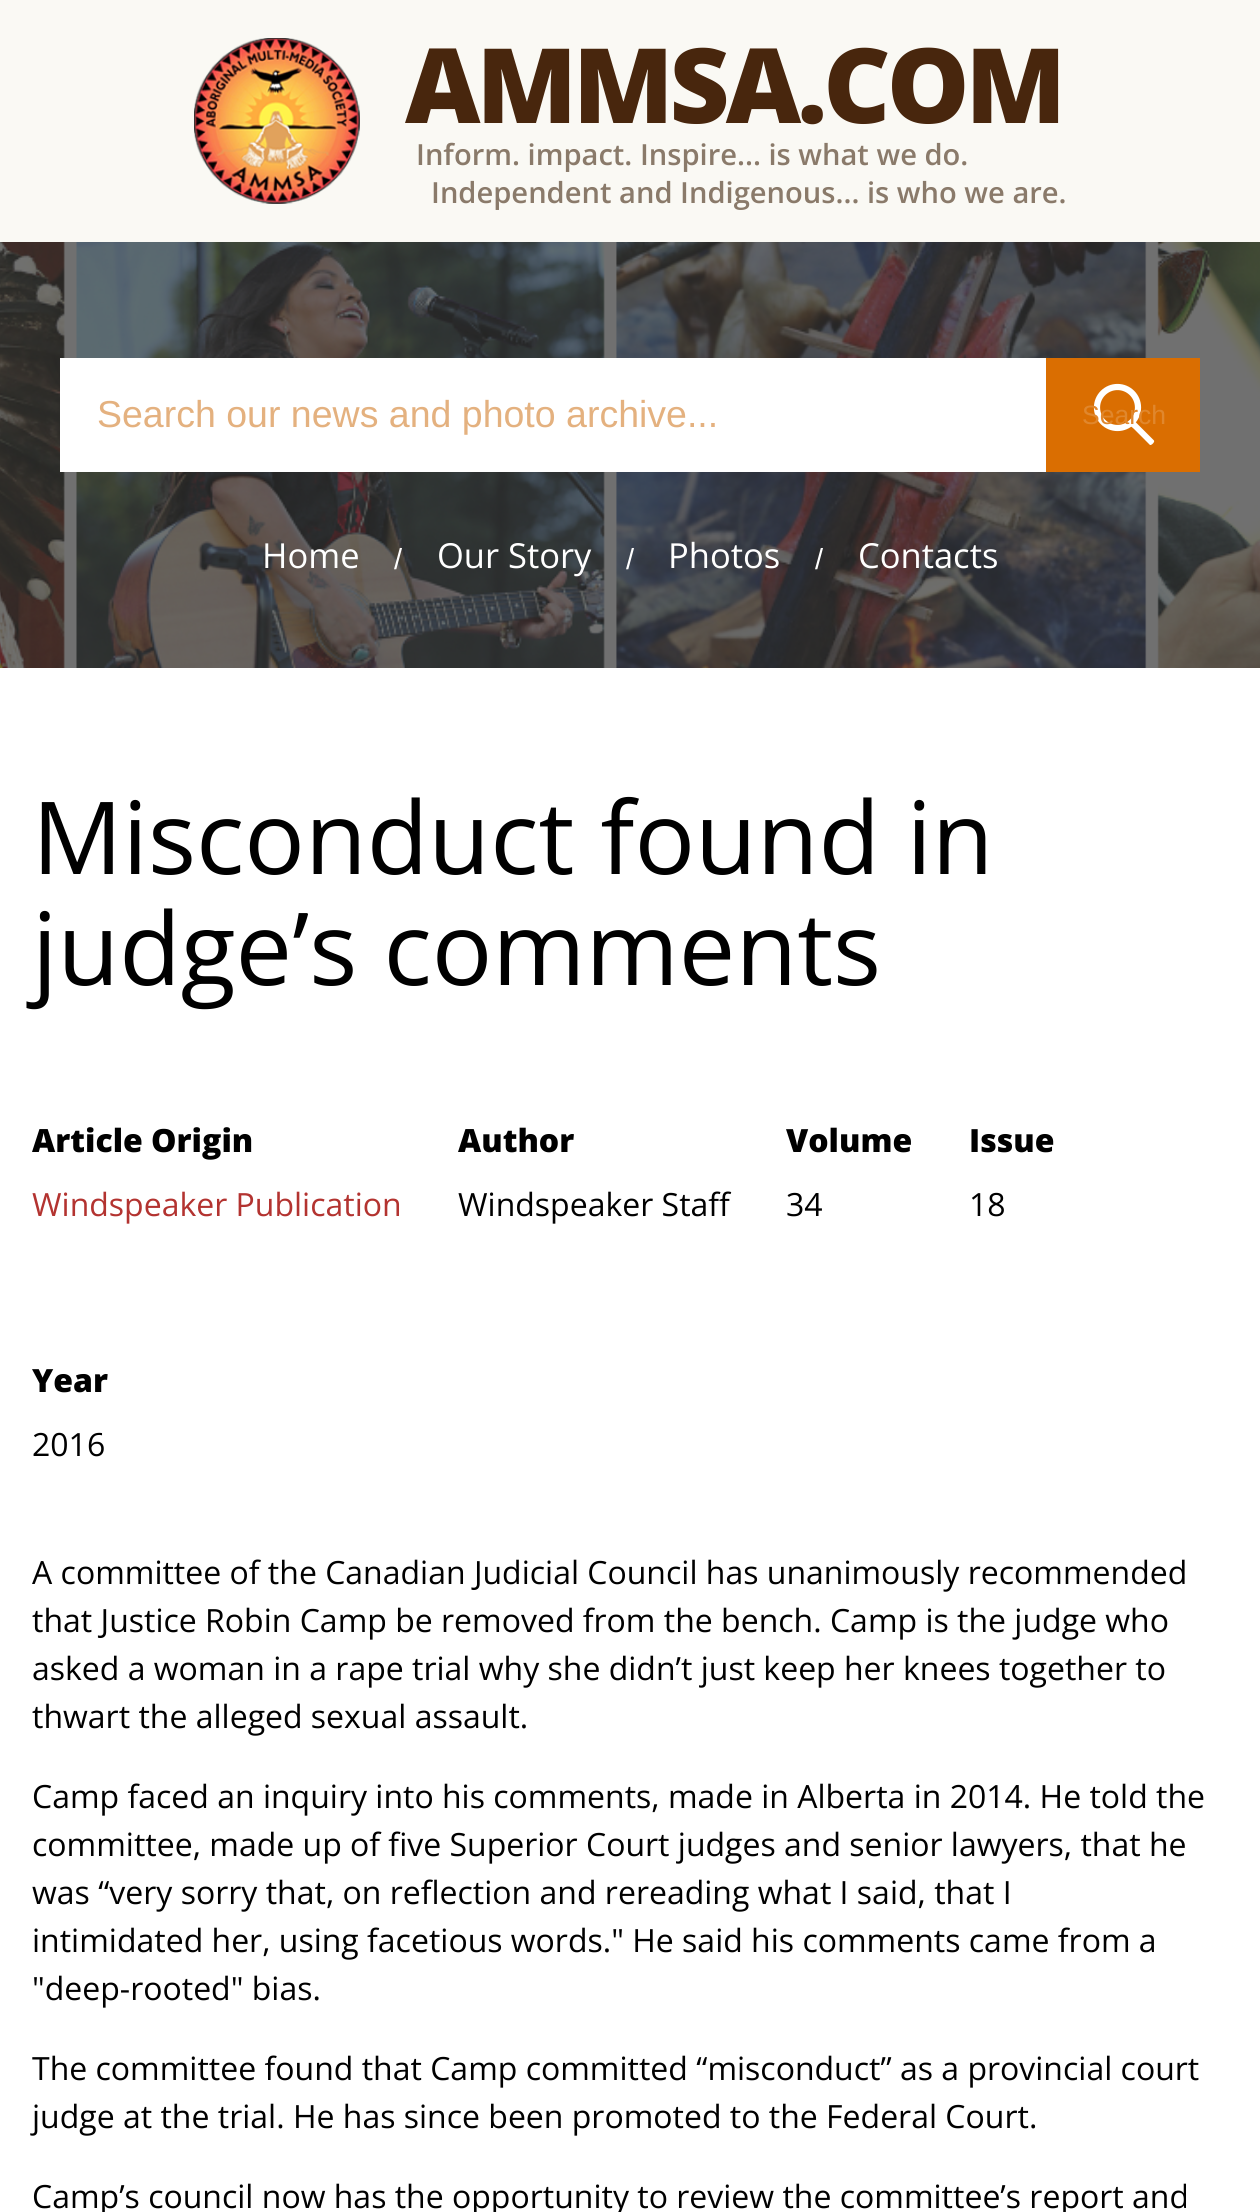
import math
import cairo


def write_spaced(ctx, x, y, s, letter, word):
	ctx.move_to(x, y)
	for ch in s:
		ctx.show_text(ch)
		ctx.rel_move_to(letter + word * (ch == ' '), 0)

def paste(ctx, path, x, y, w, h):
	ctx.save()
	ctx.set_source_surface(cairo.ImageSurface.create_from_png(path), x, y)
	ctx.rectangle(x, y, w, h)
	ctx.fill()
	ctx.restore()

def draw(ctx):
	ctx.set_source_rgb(1, 1, 1)
	ctx.paint()
	ctx.set_source_rgb(0.98, 0.976, 0.957)
	ctx.rectangle(0, 0, 1260, 242)
	ctx.fill()
	paste(ctx, 'media/1.png', 194, 38, 166, 166)
	ctx.select_font_face('Open Sans ExtraBold')
	ctx.set_font_size(104)
	ctx.set_source_rgb(0.282, 0.149, 0.051)
	write_spaced(ctx, 405, 123, 'AMMSA.COM', -4, 0)
	ctx.select_font_face('Open Sans SemiBold')
	ctx.set_font_size(29.1)
	ctx.set_source_rgb(0.541, 0.478, 0.416)
	ctx.move_to(416, 165)
	ctx.show_text('Inform. impact. Inspire... is what we do.')
	ctx.move_to(431, 203)
	ctx.show_text('Independent and Indigenous... is who we are.')
	paste(ctx, 'media/2.png', 0, 242, 1260, 426)
	ctx.set_source_rgb(1, 1, 1)
	ctx.rectangle(60, 358, 986, 114)
	ctx.fill()
	ctx.select_font_face('Liberation Sans')
	ctx.set_font_size(37.5)
	ctx.set_source_rgb(0.894, 0.694, 0.498)
	ctx.move_to(97, 427)
	ctx.show_text('Search our news and photo archive...')
	ctx.set_source_rgb(0.855, 0.431, 0.004)
	ctx.rectangle(1046, 358, 154, 114)
	ctx.fill()
	ctx.arc(1117.5, 407.5, 20.5, 0, 2 * math.pi)
	ctx.set_source_rgb(1, 1, 1)
	ctx.set_line_width(6.2)
	ctx.stroke()
	ctx.new_path()
	ctx.move_to(1134.5, 421)
	ctx.line_to(1154, 440.5)
	ctx.curve_to(1155, 442, 1151.5, 445.5, 1150, 445)
	ctx.line_to(1133.5, 428.5)
	ctx.curve_to(1130, 425.5, 1128.5, 425, 1131.5, 422)
	ctx.curve_to(1132, 421, 1133, 420.5, 1134, 421)
	ctx.close_path()
	ctx.fill()
	ctx.set_font_size(26.5)
	ctx.set_source_rgb(0.878, 0.529, 0.176)
	ctx.move_to(1082, 424)
	ctx.show_text('Search')
	ctx.select_font_face('Open Sans')
	ctx.set_font_size(34.5)
	ctx.set_source_rgb(1, 1, 1)
	ctx.move_to(262, 568)
	ctx.show_text('Home')
	ctx.select_font_face('Liberation Sans')
	ctx.set_font_size(29)
	ctx.move_to(394, 569)
	ctx.show_text('/')
	ctx.select_font_face('Open Sans')
	ctx.set_font_size(34.5)
	ctx.move_to(437, 568)
	ctx.show_text('Our Story')
	ctx.select_font_face('Liberation Sans')
	ctx.set_font_size(29)
	ctx.move_to(626, 569)
	ctx.show_text('/')
	ctx.select_font_face('Open Sans')
	ctx.set_font_size(34.5)
	ctx.move_to(668, 568)
	ctx.show_text('Photos')
	ctx.select_font_face('Liberation Sans')
	ctx.set_font_size(29)
	ctx.move_to(815, 569)
	ctx.show_text('/')
	ctx.select_font_face('Open Sans')
	ctx.set_font_size(34.5)
	ctx.move_to(858, 568)
	ctx.show_text('Contacts')
	ctx.set_font_size(100.75)
	ctx.set_source_rgb(0, 0, 0)
	ctx.move_to(32, 874)
	ctx.show_text('Misconduct found in')
	ctx.move_to(32, 985)
	ctx.show_text('judge’s comments')
	ctx.select_font_face('Open Sans ExtraBold')
	ctx.set_font_size(32)
	ctx.move_to(32, 1152)
	ctx.show_text('Article Origin')
	ctx.select_font_face('Open Sans')
	ctx.set_source_rgb(0.702, 0.2, 0.188)
	ctx.move_to(32, 1216)
	ctx.show_text('Windspeaker Publication')
	ctx.select_font_face('Open Sans ExtraBold')
	ctx.set_source_rgb(0, 0, 0)
	ctx.move_to(458, 1152)
	ctx.show_text('Author')
	ctx.select_font_face('Open Sans')
	ctx.move_to(458, 1216)
	ctx.show_text('Windspeaker Staff')
	ctx.select_font_face('Open Sans ExtraBold')
	ctx.move_to(786, 1152)
	ctx.show_text('Volume')
	ctx.select_font_face('Open Sans')
	ctx.move_to(786, 1216)
	ctx.show_text('34')
	ctx.select_font_face('Open Sans ExtraBold')
	ctx.move_to(969, 1152)
	ctx.show_text('Issue')
	ctx.select_font_face('Open Sans')
	ctx.move_to(969, 1216)
	ctx.show_text('18')
	ctx.select_font_face('Open Sans ExtraBold')
	ctx.move_to(32, 1392)
	ctx.show_text('Year')
	ctx.select_font_face('Open Sans')
	for x, y, s in [
		(32, 1456, '2016'),
		(32, 1584, 'A committee of the Canadian Judicial Council has unanimously recommended'),
		(32, 1632, 'that Justice Robin Camp be removed from the bench. Camp is the judge who'),
		(32, 1680, 'asked a woman in a rape trial why she didn’t just keep her knees together to'),
		(32, 1728, 'thwart the alleged sexual assault.'),
		(32, 1808, 'Camp faced an inquiry into his comments, made in Alberta in 2014. He told the'),
		(32, 1856, 'committee, made up of five Superior Court judges and senior lawyers, that he'),
		(32, 1904, 'was “very sorry that, on reflection and rereading what I said, that I'),
		(32, 1952, 'intimidated her, using facetious words." He said his comments came from a'),
		(32, 2000, '"deep-rooted" bias.'),
		(32, 2080, 'The committee found that Camp committed “misconduct” as a provincial court'),
		(32, 2128, 'judge at the trial. He has since been promoted to the Federal Court.'),
		(32, 2208, 'Camp’s council now has the opportunity to review the committee’s report and'),
	]:
		ctx.move_to(x, y)
		ctx.show_text(s)


surface = cairo.ImageSurface(cairo.FORMAT_RGB24, 1260, 2212)
ctx = cairo.Context(surface)
options = cairo.FontOptions()
options.set_hint_metrics(cairo.HINT_METRICS_OFF)
options.set_hint_style(cairo.HINT_STYLE_NONE)
ctx.set_font_options(options)
ctx.set_miter_limit(4)
draw(ctx)
surface.write_to_png('image.png')
